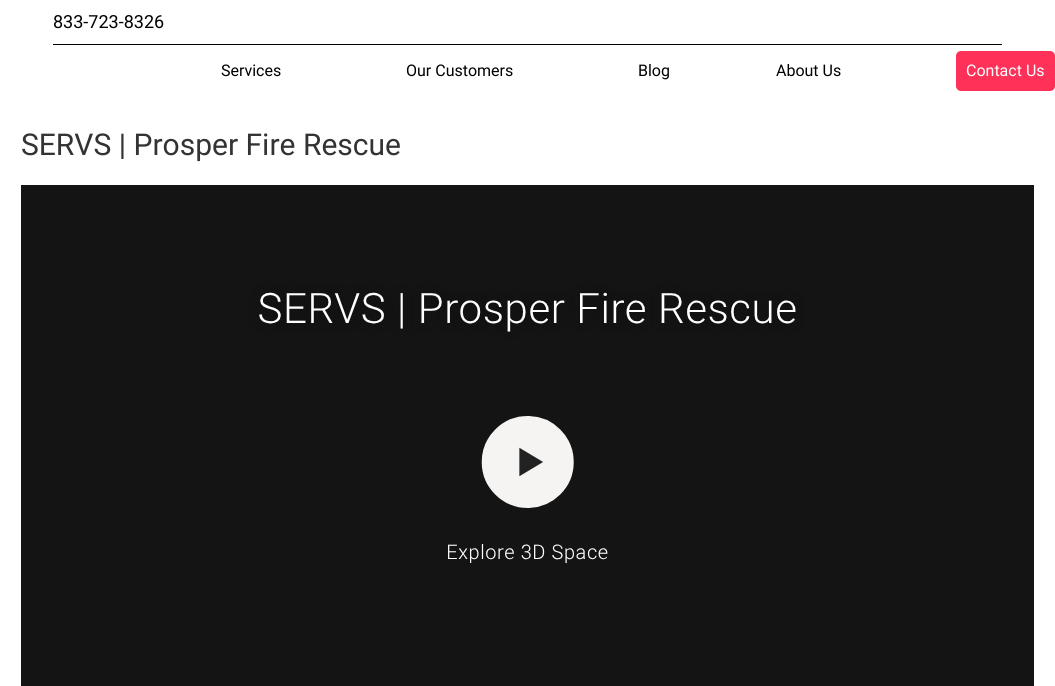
import math
import cairo


def round_path(ctx, x, y, w, h, r):
	ctx.new_sub_path()
	for i, (u, v) in enumerate([(x + w - r, y + h - r), (x + r, y + h - r), (x + r, y + r), (x + w - r, y + r)]):
		ctx.arc(u, v, r, i * math.pi / 2, (i + 1) * math.pi / 2)
	ctx.close_path()

def paste(ctx, path, x, y, w, h):
	ctx.save()
	ctx.set_source_surface(cairo.ImageSurface.create_from_png(path), x, y)
	ctx.rectangle(x, y, w, h)
	ctx.fill()
	ctx.restore()

def draw(ctx):
	ctx.set_source_rgb(1, 1, 1)
	ctx.paint()
	ctx.set_source_rgb(0, 0, 0)
	ctx.rectangle(53, 44, 949, 1)
	ctx.fill()
	ctx.select_font_face('Roboto')
	ctx.set_font_size(18)
	ctx.move_to(53, 28)
	ctx.show_text('833-723-8326')
	ctx.set_font_size(16)
	for x, y, s in [
		(221, 76, 'Services'),
		(406, 76, 'Our Customers'),
		(638, 76, 'Blog'),
		(776, 76, 'About Us'),
	]:
		ctx.move_to(x, y)
		ctx.show_text(s)
	ctx.set_source_rgb(1, 0.192, 0.345)
	round_path(ctx, 956, 51, 99, 40, 5)
	ctx.fill()
	ctx.set_source_rgb(1, 1, 1)
	ctx.move_to(966, 76)
	ctx.show_text('Contact Us')
	ctx.set_font_size(30)
	ctx.set_source_rgb(0.2, 0.2, 0.2)
	ctx.move_to(21, 155)
	ctx.show_text('SERVS | Prosper Fire Rescue')
	paste(ctx, 'media/1.png', 21, 185, 1013, 501)


surface = cairo.ImageSurface(cairo.FORMAT_RGB24, 1055, 686)
ctx = cairo.Context(surface)
options = cairo.FontOptions()
options.set_hint_metrics(cairo.HINT_METRICS_OFF)
options.set_hint_style(cairo.HINT_STYLE_NONE)
ctx.set_font_options(options)
ctx.set_miter_limit(4)
draw(ctx)
surface.write_to_png('image.png')
